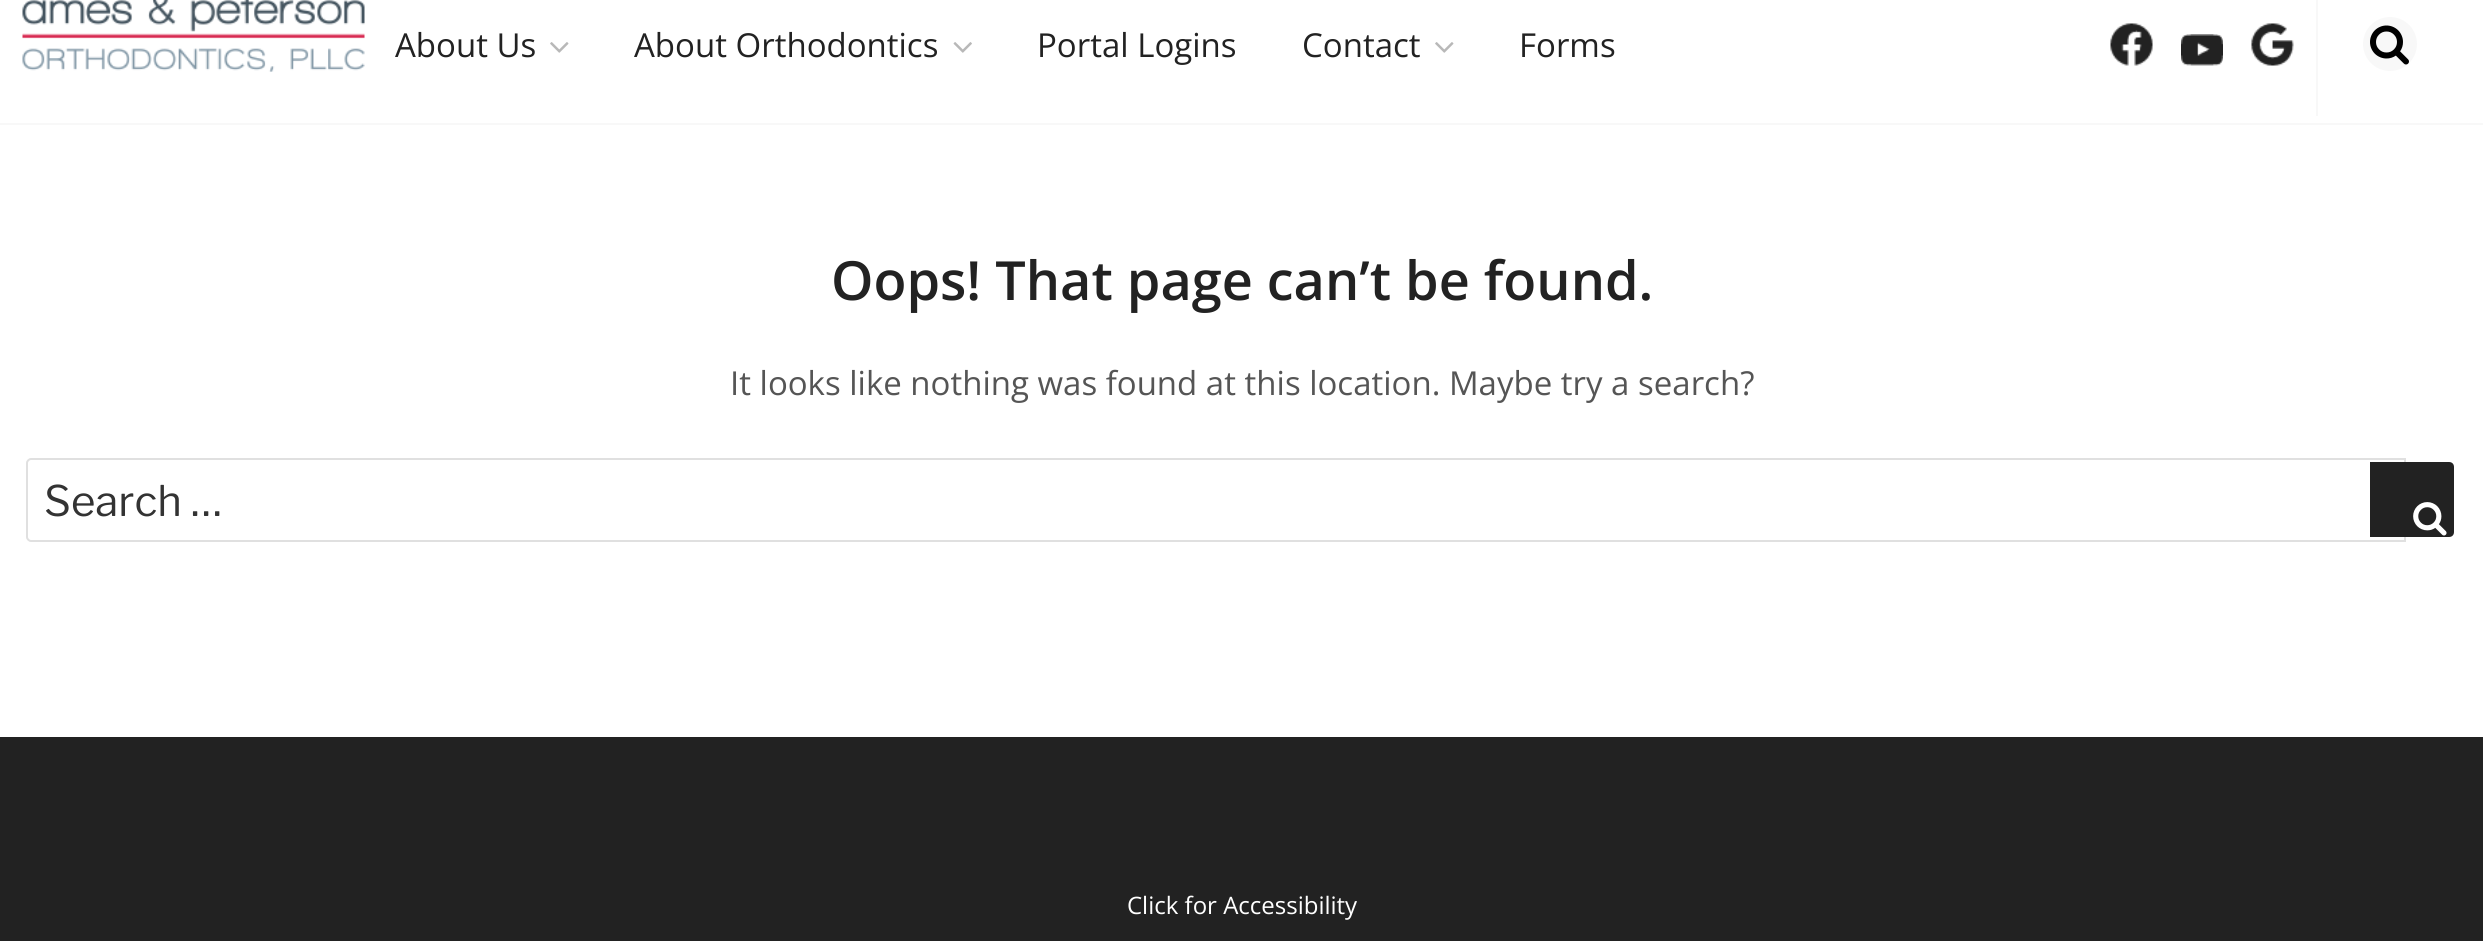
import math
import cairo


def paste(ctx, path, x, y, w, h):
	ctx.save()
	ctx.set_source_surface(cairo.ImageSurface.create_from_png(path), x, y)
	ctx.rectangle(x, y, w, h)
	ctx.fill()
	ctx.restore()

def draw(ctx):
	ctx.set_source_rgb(1, 1, 1)
	ctx.paint()
	ctx.set_source_rgb(0.969, 0.969, 0.969)
	ctx.rectangle(0, 123, 2483, 2)
	ctx.fill()
	paste(ctx, 'media/1.png', 22, 0, 343, 72)
	ctx.select_font_face('Open Sans')
	ctx.set_font_size(33)
	ctx.set_source_rgb(0.133, 0.133, 0.133)
	ctx.move_to(395, 57)
	ctx.show_text('About Us')
	paste(ctx, 'media/2.png', 550, 42, 19, 11)
	ctx.move_to(634, 57)
	ctx.show_text('About Orthodontics')
	paste(ctx, 'media/3.png', 953, 42, 19, 11)
	ctx.move_to(1037, 57)
	ctx.show_text('Portal Logins')
	ctx.move_to(1302, 57)
	ctx.show_text('Contact')
	paste(ctx, 'media/2.png', 1435, 42, 19, 11)
	ctx.move_to(1519, 57)
	ctx.show_text('Forms')
	paste(ctx, 'media/4.png', 2110, 23, 43, 43)
	paste(ctx, 'media/5.png', 2181, 34, 42, 32)
	paste(ctx, 'media/6.png', 2251, 23, 43, 43)
	ctx.set_source_rgb(0.969, 0.969, 0.969)
	ctx.rectangle(2316, 0, 2, 116)
	ctx.fill()
	ctx.arc(2390, 44, 27, 0, 2 * math.pi)
	ctx.fill()
	paste(ctx, 'media/7.png', 2370, 25, 39, 40)
	ctx.select_font_face('Open Sans SemiBold')
	ctx.set_font_size(54)
	ctx.set_source_rgb(0.133, 0.133, 0.133)
	ctx.move_to(831, 300)
	ctx.show_text('Oops! That page can’t be found.')
	ctx.select_font_face('Open Sans')
	ctx.set_font_size(33)
	ctx.set_source_rgb(0.333, 0.333, 0.333)
	ctx.move_to(730, 395)
	ctx.show_text('It looks like nothing was found at this location. Maybe try a search?')
	ctx.new_path()
	ctx.move_to(31, 459)
	ctx.line_to(2405, 459)
	ctx.line_to(2405, 541)
	ctx.line_to(31, 541)
	ctx.curve_to(29, 541, 27, 539, 27, 537)
	ctx.line_to(27, 463)
	ctx.curve_to(27, 461, 29, 459, 31, 459)
	ctx.close_path()
	ctx.set_source_rgb(0.878, 0.878, 0.878)
	ctx.stroke()
	ctx.select_font_face('Libre Franklin Thin')
	ctx.set_font_size(42)
	ctx.set_source_rgb(0.2, 0.2, 0.2)
	ctx.move_to(44, 516)
	ctx.show_text('Search …')
	ctx.set_source_rgb(0.133, 0.133, 0.133)
	ctx.new_path()
	ctx.move_to(2370, 462)
	ctx.line_to(2449, 462)
	ctx.curve_to(2452, 462, 2454, 464, 2454, 467)
	ctx.line_to(2454, 532)
	ctx.curve_to(2454, 535, 2452, 537, 2449, 537)
	ctx.line_to(2370, 537)
	ctx.close_path()
	ctx.fill()
	paste(ctx, 'media/8.png', 2413, 502, 34, 34)
	ctx.rectangle(0, 737, 2483, 204)
	ctx.fill()
	ctx.select_font_face('Open Sans')
	ctx.set_font_size(24)
	ctx.set_source_rgb(1, 1, 1)
	ctx.move_to(1127, 914)
	ctx.show_text('Click for Accessibility')


surface = cairo.ImageSurface(cairo.FORMAT_RGB24, 2483, 941)
ctx = cairo.Context(surface)
options = cairo.FontOptions()
options.set_hint_metrics(cairo.HINT_METRICS_OFF)
options.set_hint_style(cairo.HINT_STYLE_NONE)
ctx.set_font_options(options)
ctx.set_miter_limit(4)
draw(ctx)
surface.write_to_png('image.png')
